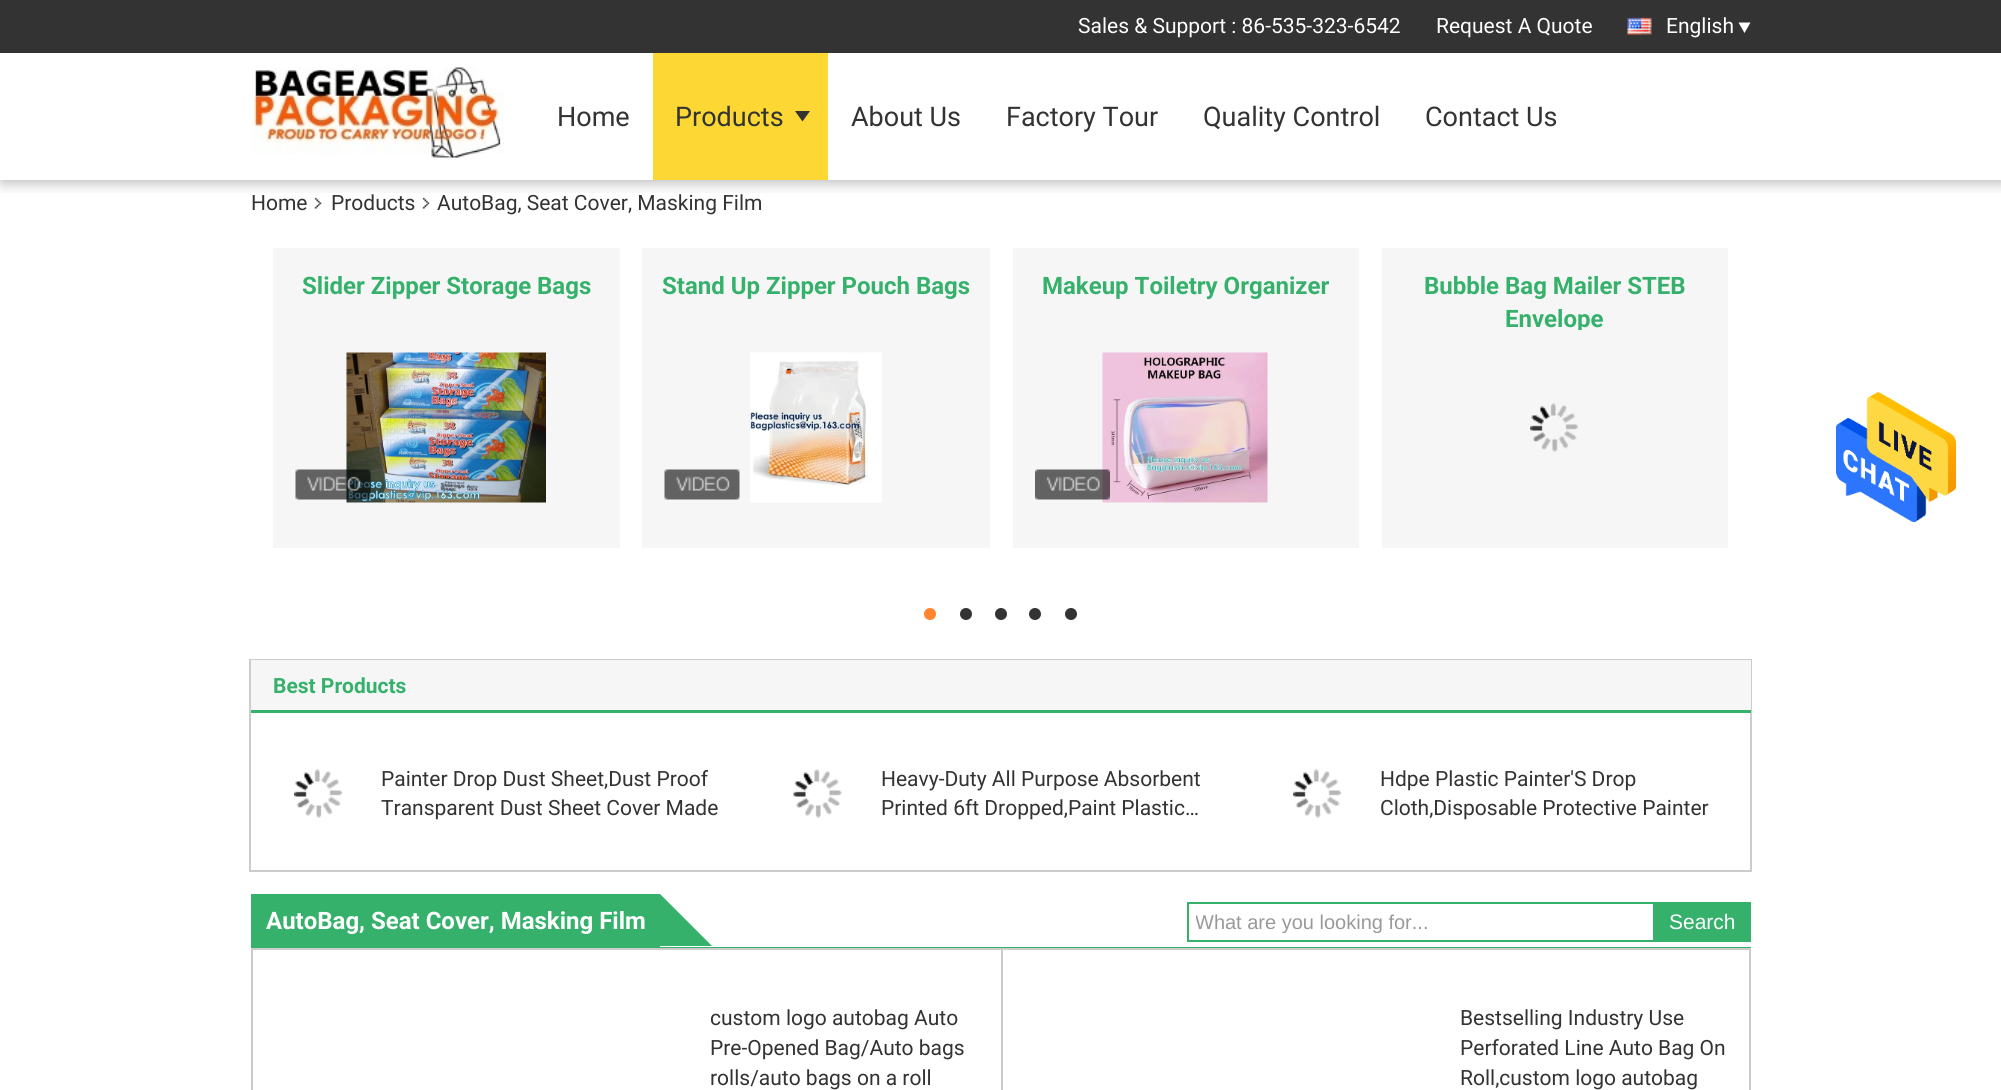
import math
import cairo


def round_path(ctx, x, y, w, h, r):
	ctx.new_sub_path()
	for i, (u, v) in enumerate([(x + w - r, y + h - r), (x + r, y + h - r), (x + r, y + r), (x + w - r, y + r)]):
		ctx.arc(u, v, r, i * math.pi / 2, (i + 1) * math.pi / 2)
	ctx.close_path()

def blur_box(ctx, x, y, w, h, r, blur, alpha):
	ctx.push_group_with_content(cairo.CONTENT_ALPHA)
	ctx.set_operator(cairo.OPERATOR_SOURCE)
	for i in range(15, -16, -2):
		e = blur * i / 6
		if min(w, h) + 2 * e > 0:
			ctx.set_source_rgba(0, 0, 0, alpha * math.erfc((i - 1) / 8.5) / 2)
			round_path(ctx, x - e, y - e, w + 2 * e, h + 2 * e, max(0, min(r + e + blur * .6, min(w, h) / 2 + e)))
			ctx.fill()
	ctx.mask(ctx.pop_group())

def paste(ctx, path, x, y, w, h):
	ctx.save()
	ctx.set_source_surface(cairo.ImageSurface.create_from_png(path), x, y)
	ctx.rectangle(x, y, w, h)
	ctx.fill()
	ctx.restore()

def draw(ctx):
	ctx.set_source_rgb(1, 1, 1)
	ctx.paint()
	ctx.save()
	ctx.rectangle(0, 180, 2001, 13)
	ctx.clip()
	ctx.set_source_rgb(0, 0, 0)
	blur_box(ctx, 2, 2, 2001, 180, 0, 7.5, 0.3)
	ctx.restore()
	ctx.set_source_rgb(0.2, 0.2, 0.2)
	ctx.rectangle(0, 0, 2001, 53)
	ctx.fill()
	ctx.select_font_face('Roboto')
	ctx.set_font_size(21)
	ctx.set_source_rgb(1, 1, 1)
	ctx.move_to(1078, 33)
	ctx.show_text('Sales & Support : 86-535-323-6542')
	ctx.move_to(1436, 33)
	ctx.show_text('Request A Quote')
	paste(ctx, 'media/1.png', 1627, 17, 25, 18)
	ctx.move_to(1666, 33)
	ctx.show_text('English')
	ctx.new_path()
	ctx.move_to(1738.5, 22.5)
	ctx.line_to(1750.5, 22.5)
	ctx.line_to(1744.5, 33)
	ctx.close_path()
	ctx.fill()
	paste(ctx, 'media/2.png', 250, 67, 254, 91)
	ctx.set_font_size(27)
	ctx.set_source_rgb(0.2, 0.2, 0.2)
	ctx.move_to(557, 126)
	ctx.show_text('Home')
	ctx.set_source_rgb(0.992, 0.847, 0.208)
	ctx.rectangle(653, 53, 175, 127)
	ctx.fill()
	ctx.set_source_rgb(0.2, 0.2, 0.2)
	ctx.move_to(675, 126)
	ctx.show_text('Products')
	ctx.new_path()
	ctx.move_to(795, 111)
	ctx.line_to(810, 111)
	ctx.line_to(802.5, 121.5)
	ctx.close_path()
	ctx.fill()
	for x, y, s in [
		(851, 126, 'About Us'),
		(1006, 126, 'Factory Tour'),
		(1203, 126, 'Quality Control'),
		(1425, 126, 'Contact Us'),
	]:
		ctx.move_to(x, y)
		ctx.show_text(s)
	ctx.set_font_size(21)
	ctx.move_to(251, 210)
	ctx.show_text('Home')
	paste(ctx, 'media/3.png', 314, 197, 8, 12)
	ctx.move_to(331, 210)
	ctx.show_text('Products')
	paste(ctx, 'media/4.png', 422, 197, 8, 12)
	ctx.move_to(437, 210)
	ctx.show_text('AutoBag, Seat Cover, Masking Film')
	ctx.set_source_rgb(0.961, 0.961, 0.961)
	ctx.rectangle(273, 248, 347, 300)
	ctx.fill()
	ctx.select_font_face('Roboto', cairo.FONT_SLANT_NORMAL, cairo.FONT_WEIGHT_BOLD)
	ctx.set_font_size(24)
	ctx.set_source_rgb(0.208, 0.694, 0.424)
	ctx.move_to(302, 294)
	ctx.show_text('Slider Zipper Storage Bags')
	paste(ctx, 'media/6.png', 346, 352, 200, 151)
	paste(ctx, 'media/5.png', 295, 469, 76, 31)
	ctx.set_source_rgb(0.961, 0.961, 0.961)
	ctx.rectangle(642, 248, 348, 300)
	ctx.fill()
	ctx.set_source_rgb(0.208, 0.694, 0.424)
	ctx.move_to(662, 294)
	ctx.show_text('Stand Up Zipper Pouch Bags')
	paste(ctx, 'media/7.png', 664, 469, 76, 31)
	paste(ctx, 'media/8.png', 750, 352, 132, 151)
	ctx.set_source_rgb(0.961, 0.961, 0.961)
	ctx.rectangle(1013, 248, 346, 300)
	ctx.fill()
	ctx.set_source_rgb(0.208, 0.694, 0.424)
	ctx.move_to(1042, 294)
	ctx.show_text('Makeup Toiletry Organizer')
	paste(ctx, 'media/10.png', 1102, 352, 166, 151)
	paste(ctx, 'media/9.png', 1035, 469, 75, 31)
	ctx.set_source_rgb(0.961, 0.961, 0.961)
	ctx.rectangle(1382, 248, 346, 300)
	ctx.fill()
	ctx.set_source_rgb(0.208, 0.694, 0.424)
	ctx.move_to(1424, 294)
	ctx.show_text('Bubble Bag Mailer STEB')
	ctx.save()
	ctx.rectangle(1397, 270, 316, 60)
	ctx.clip()
	ctx.move_to(1505, 327)
	ctx.show_text('Envelope')
	ctx.restore()
	paste(ctx, 'media/11.png', 1530, 403, 48, 49)
	ctx.set_source_rgb(1, 0.518, 0.176)
	ctx.arc(930, 614, 6, 0, 2 * math.pi)
	ctx.fill()
	ctx.set_source_rgb(0.2, 0.2, 0.2)
	ctx.arc(966, 614, 6, 0, 2 * math.pi)
	ctx.fill()
	ctx.arc(1001, 614, 6, 0, 2 * math.pi)
	ctx.fill()
	ctx.arc(1035, 614, 6, 0, 2 * math.pi)
	ctx.fill()
	ctx.arc(1071, 614, 6, 0, 2 * math.pi)
	ctx.fill()
	paste(ctx, 'media/12.png', 1836, 392, 120, 131)
	ctx.rectangle(250, 660, 1501, 211)
	ctx.set_source_rgb(0.8, 0.8, 0.8)
	ctx.stroke()
	ctx.set_source_rgb(0.961, 0.961, 0.961)
	ctx.rectangle(251, 660, 1500, 50)
	ctx.fill()
	ctx.set_source_rgb(0.208, 0.694, 0.424)
	ctx.rectangle(251, 710, 1500, 3)
	ctx.fill()
	ctx.set_font_size(21)
	ctx.move_to(273, 693)
	ctx.show_text('Best Products')
	paste(ctx, 'media/13.png', 294, 769, 48, 49)
	ctx.select_font_face('Roboto')
	ctx.set_source_rgb(0.2, 0.2, 0.2)
	ctx.move_to(381, 786)
	ctx.show_text('Painter Drop Dust Sheet,Dust Proof')
	ctx.move_to(381, 815)
	ctx.show_text('Transparent Dust Sheet Cover Made')
	paste(ctx, 'media/14.png', 793, 769, 49, 49)
	ctx.move_to(881, 786)
	ctx.show_text('Heavy-Duty All Purpose Absorbent')
	ctx.move_to(881, 815)
	ctx.show_text('Printed 6ft Dropped,Paint Plastic…')
	paste(ctx, 'media/15.png', 1293, 769, 48, 49)
	ctx.move_to(1380, 786)
	ctx.show_text('Hdpe Plastic Painter\'S Drop')
	ctx.move_to(1380, 815)
	ctx.show_text('Cloth,Disposable Protective Painter')
	ctx.set_source_rgb(0.208, 0.694, 0.424)
	ctx.rectangle(251, 947, 1500, 1)
	ctx.fill()
	ctx.rectangle(251, 894, 409, 53)
	ctx.fill()
	ctx.select_font_face('Roboto', cairo.FONT_SLANT_NORMAL, cairo.FONT_WEIGHT_BOLD)
	ctx.set_font_size(24)
	ctx.set_source_rgb(1, 1, 1)
	ctx.move_to(266, 929)
	ctx.show_text('AutoBag, Seat Cover, Masking Film')
	ctx.set_source_rgb(0.208, 0.694, 0.424)
	ctx.new_path()
	ctx.move_to(712, 946)
	ctx.line_to(660, 946)
	ctx.line_to(660, 894)
	ctx.close_path()
	ctx.fill()
	ctx.rectangle(1188, 903, 466, 38)
	ctx.stroke()
	ctx.save()
	ctx.rectangle(1196, 911, 450, 22)
	ctx.clip()
	ctx.select_font_face('Liberation Sans')
	ctx.set_font_size(20)
	ctx.set_source_rgb(0.6, 0.6, 0.6)
	ctx.move_to(1195, 929)
	ctx.show_text('What are you looking for...')
	ctx.restore()
	ctx.rectangle(1655, 902, 96, 40)
	ctx.fill()
	ctx.select_font_face('Liberation Sans')
	ctx.set_font_size(21)
	ctx.set_source_rgb(1, 1, 1)
	ctx.move_to(1669, 929)
	ctx.show_text('Search')
	ctx.set_source_rgb(0.8, 0.8, 0.8)
	ctx.rectangle(251, 948, 1500, 2)
	ctx.fill()
	ctx.rectangle(251, 950, 2, 140)
	ctx.fill()
	ctx.select_font_face('Roboto')
	ctx.set_source_rgb(0.2, 0.2, 0.2)
	for x, y, s in [
		(710, 1025, 'custom logo autobag Auto'),
		(710, 1055, 'Pre-Opened Bag/Auto bags'),
		(710, 1085, 'rolls/auto bags on a roll'),
	]:
		ctx.move_to(x, y)
		ctx.show_text(s)
	ctx.set_source_rgb(0.8, 0.8, 0.8)
	ctx.rectangle(1749, 950, 2, 140)
	ctx.fill()
	ctx.rectangle(1001, 950, 2, 140)
	ctx.fill()
	ctx.set_source_rgb(0.2, 0.2, 0.2)
	for x, y, s in [
		(1460, 1025, 'Bestselling Industry Use'),
		(1460, 1055, 'Perforated Line Auto Bag On'),
		(1460, 1085, 'Roll,custom logo autobag'),
	]:
		ctx.move_to(x, y)
		ctx.show_text(s)


surface = cairo.ImageSurface(cairo.FORMAT_RGB24, 2001, 1090)
ctx = cairo.Context(surface)
options = cairo.FontOptions()
options.set_hint_metrics(cairo.HINT_METRICS_OFF)
options.set_hint_style(cairo.HINT_STYLE_NONE)
ctx.set_font_options(options)
ctx.set_miter_limit(4)
draw(ctx)
surface.write_to_png('image.png')
